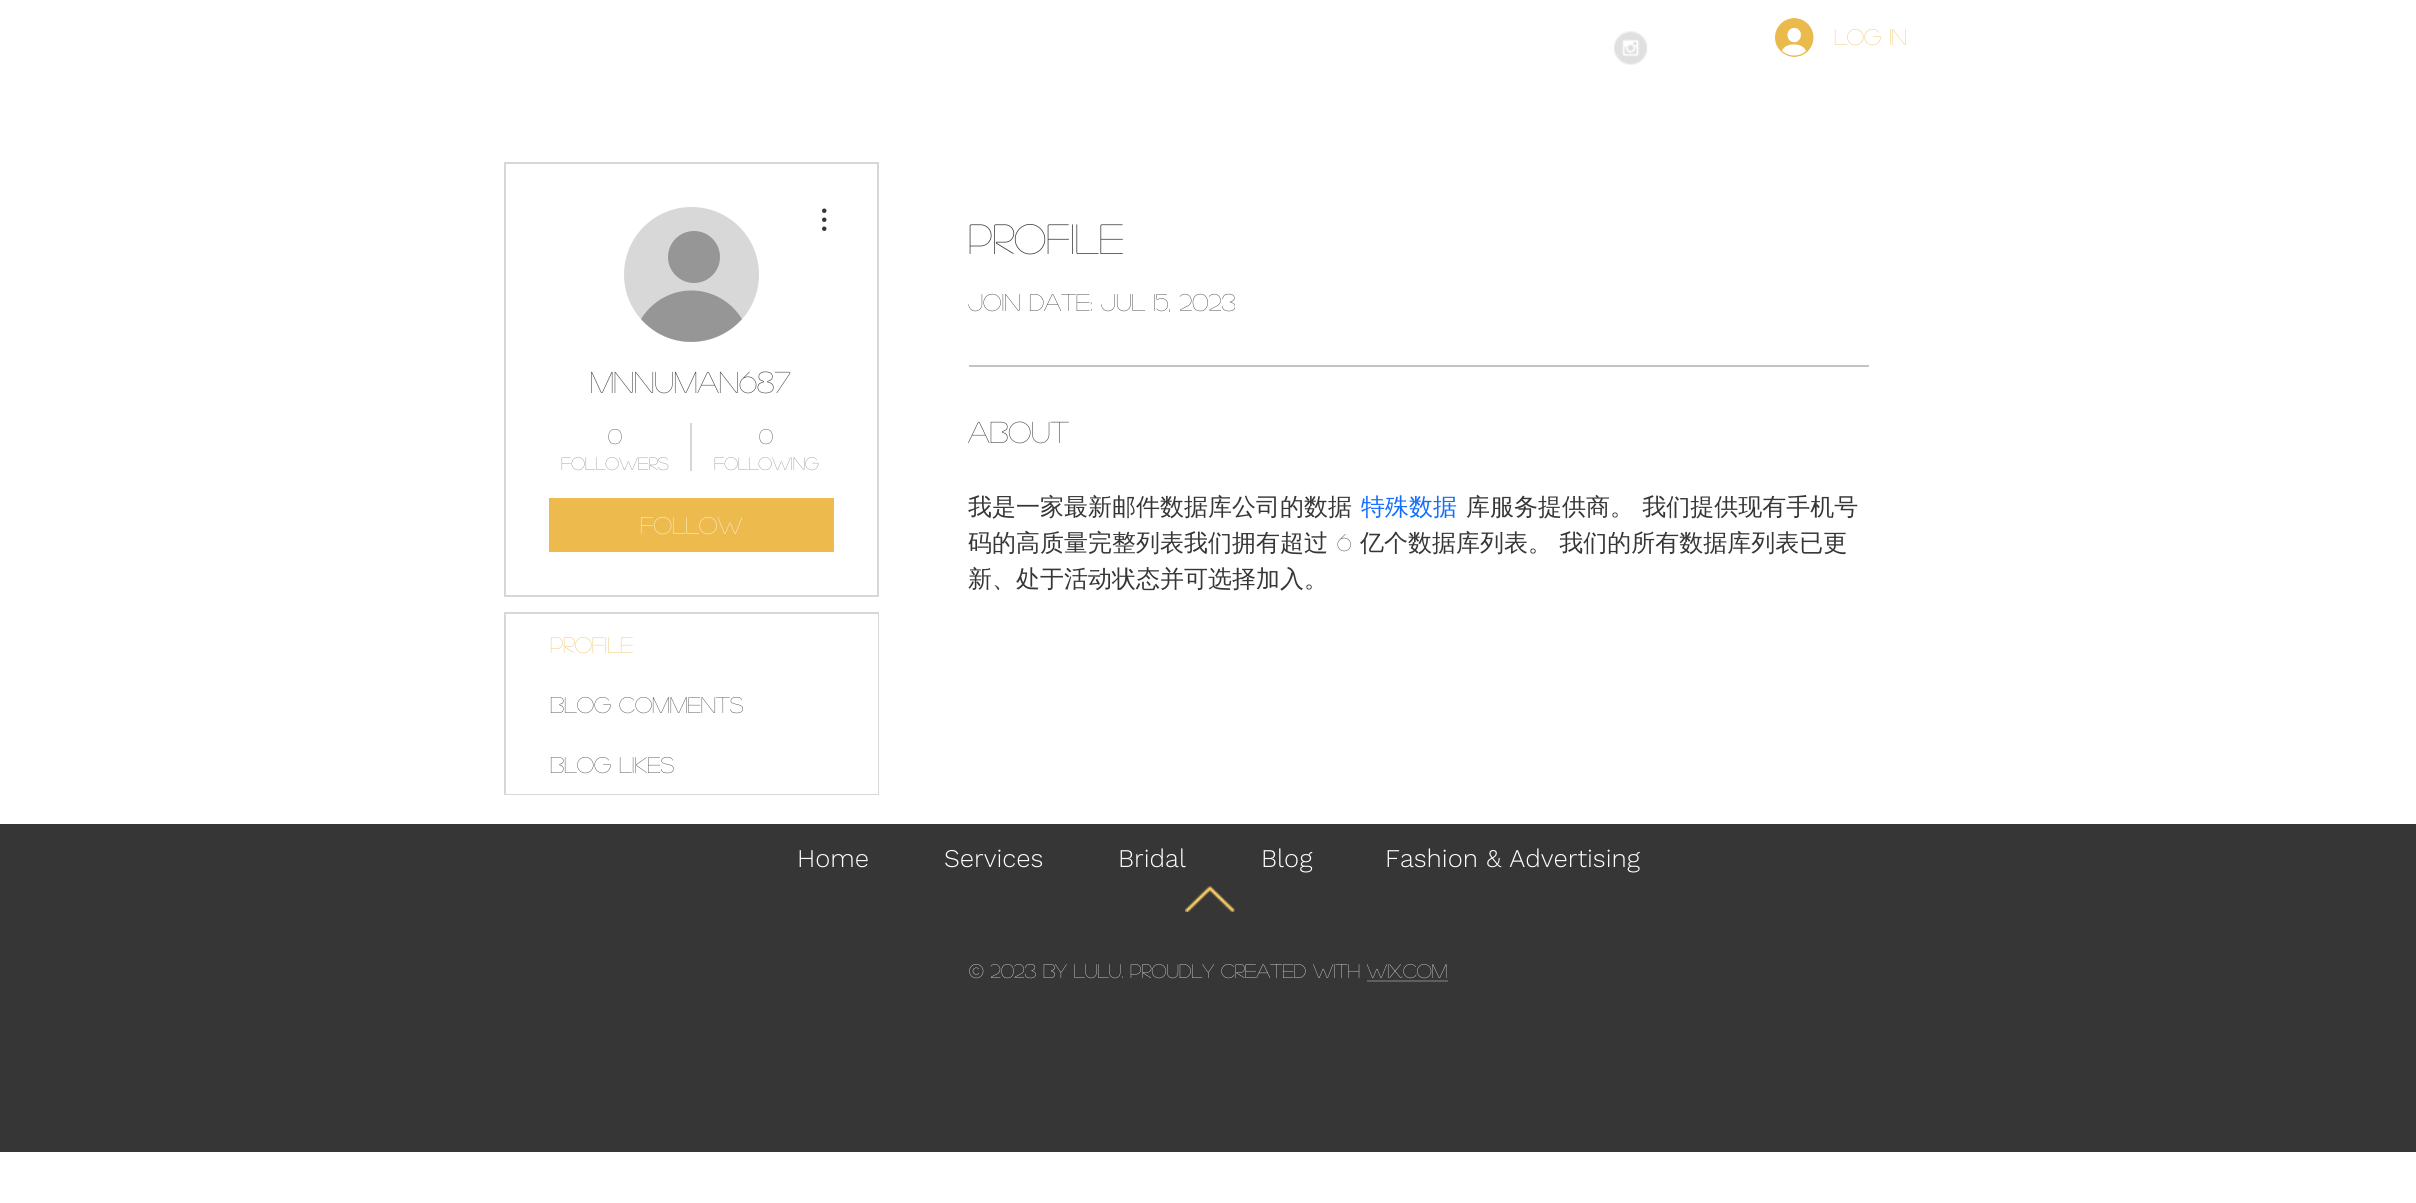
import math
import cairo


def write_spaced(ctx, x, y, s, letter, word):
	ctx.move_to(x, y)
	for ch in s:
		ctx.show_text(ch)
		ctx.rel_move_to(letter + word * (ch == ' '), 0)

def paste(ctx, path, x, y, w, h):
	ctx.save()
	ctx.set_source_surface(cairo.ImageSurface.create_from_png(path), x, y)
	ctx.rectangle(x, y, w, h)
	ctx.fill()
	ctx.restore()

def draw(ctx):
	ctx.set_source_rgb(1, 1, 1)
	ctx.paint()
	paste(ctx, 'media/1.png', 1614, 31, 33, 34)
	paste(ctx, 'media/2.png', 1775, 18, 39, 39)
	ctx.select_font_face('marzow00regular')
	ctx.set_font_size(22.5)
	ctx.set_source_rgb(0.922, 0.729, 0.302)
	ctx.move_to(1834, 45)
	ctx.show_text('Log In')
	ctx.rectangle(505, 163, 373, 433)
	ctx.set_source_rgb(0.843, 0.843, 0.843)
	ctx.stroke()
	ctx.set_source_rgb(0.847, 0.847, 0.847)
	ctx.arc(691.5, 274.5, 67.5, 0, 2 * math.pi)
	ctx.fill()
	ctx.set_source_rgb(0.588, 0.588, 0.588)
	ctx.arc(694, 257, 26, 0, 2 * math.pi)
	ctx.fill()
	ctx.new_path()
	ctx.move_to(742, 319)
	ctx.curve_to(715, 349, 668, 350, 641, 319)
	ctx.curve_to(665, 281, 718, 281, 742, 319)
	ctx.close_path()
	ctx.fill()
	paste(ctx, 'media/3.png', 822, 208, 5, 23)
	ctx.set_font_size(30)
	ctx.set_source_rgb(0.212, 0.212, 0.212)
	ctx.move_to(590, 393)
	ctx.show_text('mnnuman687')
	ctx.set_font_size(21)
	ctx.move_to(608, 444)
	ctx.show_text('0')
	ctx.set_font_size(18)
	ctx.set_source_rgb(0.447, 0.447, 0.447)
	ctx.move_to(561, 470)
	ctx.show_text('Followers')
	ctx.set_source_rgb(0.843, 0.843, 0.843)
	ctx.rectangle(690, 423, 2, 48)
	ctx.fill()
	ctx.set_font_size(21)
	ctx.set_source_rgb(0.212, 0.212, 0.212)
	ctx.move_to(759, 444)
	ctx.show_text('0')
	ctx.set_font_size(18)
	ctx.set_source_rgb(0.447, 0.447, 0.447)
	ctx.move_to(714, 470)
	ctx.show_text('Following')
	ctx.set_source_rgb(0.922, 0.729, 0.302)
	ctx.rectangle(549, 498, 285, 54)
	ctx.fill()
	ctx.set_font_size(24)
	ctx.set_source_rgb(1, 1, 1)
	ctx.move_to(640, 534)
	ctx.show_text('Follow')
	ctx.rectangle(505, 613, 373, 181)
	ctx.set_source_rgb(0.843, 0.843, 0.843)
	ctx.stroke()
	ctx.set_source_rgb(1, 1, 1)
	ctx.rectangle(877, 614, 1, 120)
	ctx.fill()
	ctx.set_font_size(22.5)
	ctx.set_source_rgb(0.922, 0.729, 0.302)
	ctx.move_to(550, 653)
	ctx.show_text('Profile')
	ctx.set_source_rgb(0.212, 0.212, 0.212)
	ctx.move_to(550, 713)
	ctx.show_text('Blog Comments')
	ctx.set_source_rgb(1, 1, 1)
	ctx.rectangle(506, 734, 372, 60)
	ctx.fill()
	ctx.set_source_rgb(0.212, 0.212, 0.212)
	ctx.move_to(550, 773)
	ctx.show_text('Blog Likes')
	ctx.set_font_size(42)
	ctx.move_to(968, 254)
	ctx.show_text('Profile')
	ctx.set_font_size(24)
	ctx.move_to(968, 311)
	ctx.show_text('Join date: Jul 15, 2023')
	ctx.set_source_rgb(0.765, 0.765, 0.765)
	ctx.rectangle(969, 365, 900, 2)
	ctx.fill()
	ctx.set_font_size(30)
	ctx.set_source_rgb(0.212, 0.212, 0.212)
	ctx.move_to(968, 443)
	ctx.show_text('About')
	ctx.select_font_face('WenQuanYi Zen Hei Medium')
	ctx.set_font_size(24)
	ctx.move_to(968, 515)
	ctx.show_text('我是一家最新邮件数据库公司的数据')
	ctx.set_source_rgb(0.067, 0.427, 1)
	ctx.move_to(1361, 515)
	ctx.show_text('特殊数据')
	ctx.set_source_rgb(0.212, 0.212, 0.212)
	write_spaced(ctx, 1466, 515, '库服务提供商。 我们提供现有手机号', 0, 1)
	ctx.move_to(968, 551)
	ctx.show_text('码的高质量完整列表我们拥有超过')
	ctx.select_font_face('marzow00regular')
	ctx.move_to(1337, 551)
	ctx.show_text('6')
	ctx.select_font_face('WenQuanYi Zen Hei Medium')
	ctx.move_to(1360, 551)
	ctx.show_text('亿个数据库列表。 我们的所有数据库列表已更')
	ctx.move_to(968, 587)
	ctx.show_text('新、处于活动状态并可选择加入。')
	ctx.rectangle(0, 824, 2416, 328)
	ctx.fill()
	ctx.select_font_face('Work Sans Light')
	ctx.set_font_size(25.5)
	ctx.set_source_rgb(1, 1, 1)
	for x, y, s in [
		(797, 867, 'Home'),
		(944, 867, 'Services'),
		(1118, 867, 'Bridal'),
		(1261, 867, 'Blog'),
		(1385, 867, 'Fashion & Advertising'),
	]:
		ctx.move_to(x, y)
		ctx.show_text(s)
	paste(ctx, 'media/4.png', 1185, 886, 50, 26)
	ctx.select_font_face('marzow00regular')
	ctx.set_font_size(19.5)
	ctx.move_to(969, 978)
	ctx.show_text('© 2023 by LULU. Proudly created with Wix.com')
	ctx.set_source_rgb(0.376, 0.369, 0.369)
	ctx.rectangle(1367, 980, 81, 2)
	ctx.fill()


surface = cairo.ImageSurface(cairo.FORMAT_RGB24, 2416, 1203)
ctx = cairo.Context(surface)
options = cairo.FontOptions()
options.set_hint_metrics(cairo.HINT_METRICS_OFF)
options.set_hint_style(cairo.HINT_STYLE_NONE)
ctx.set_font_options(options)
ctx.set_miter_limit(4)
draw(ctx)
surface.write_to_png('image.png')
